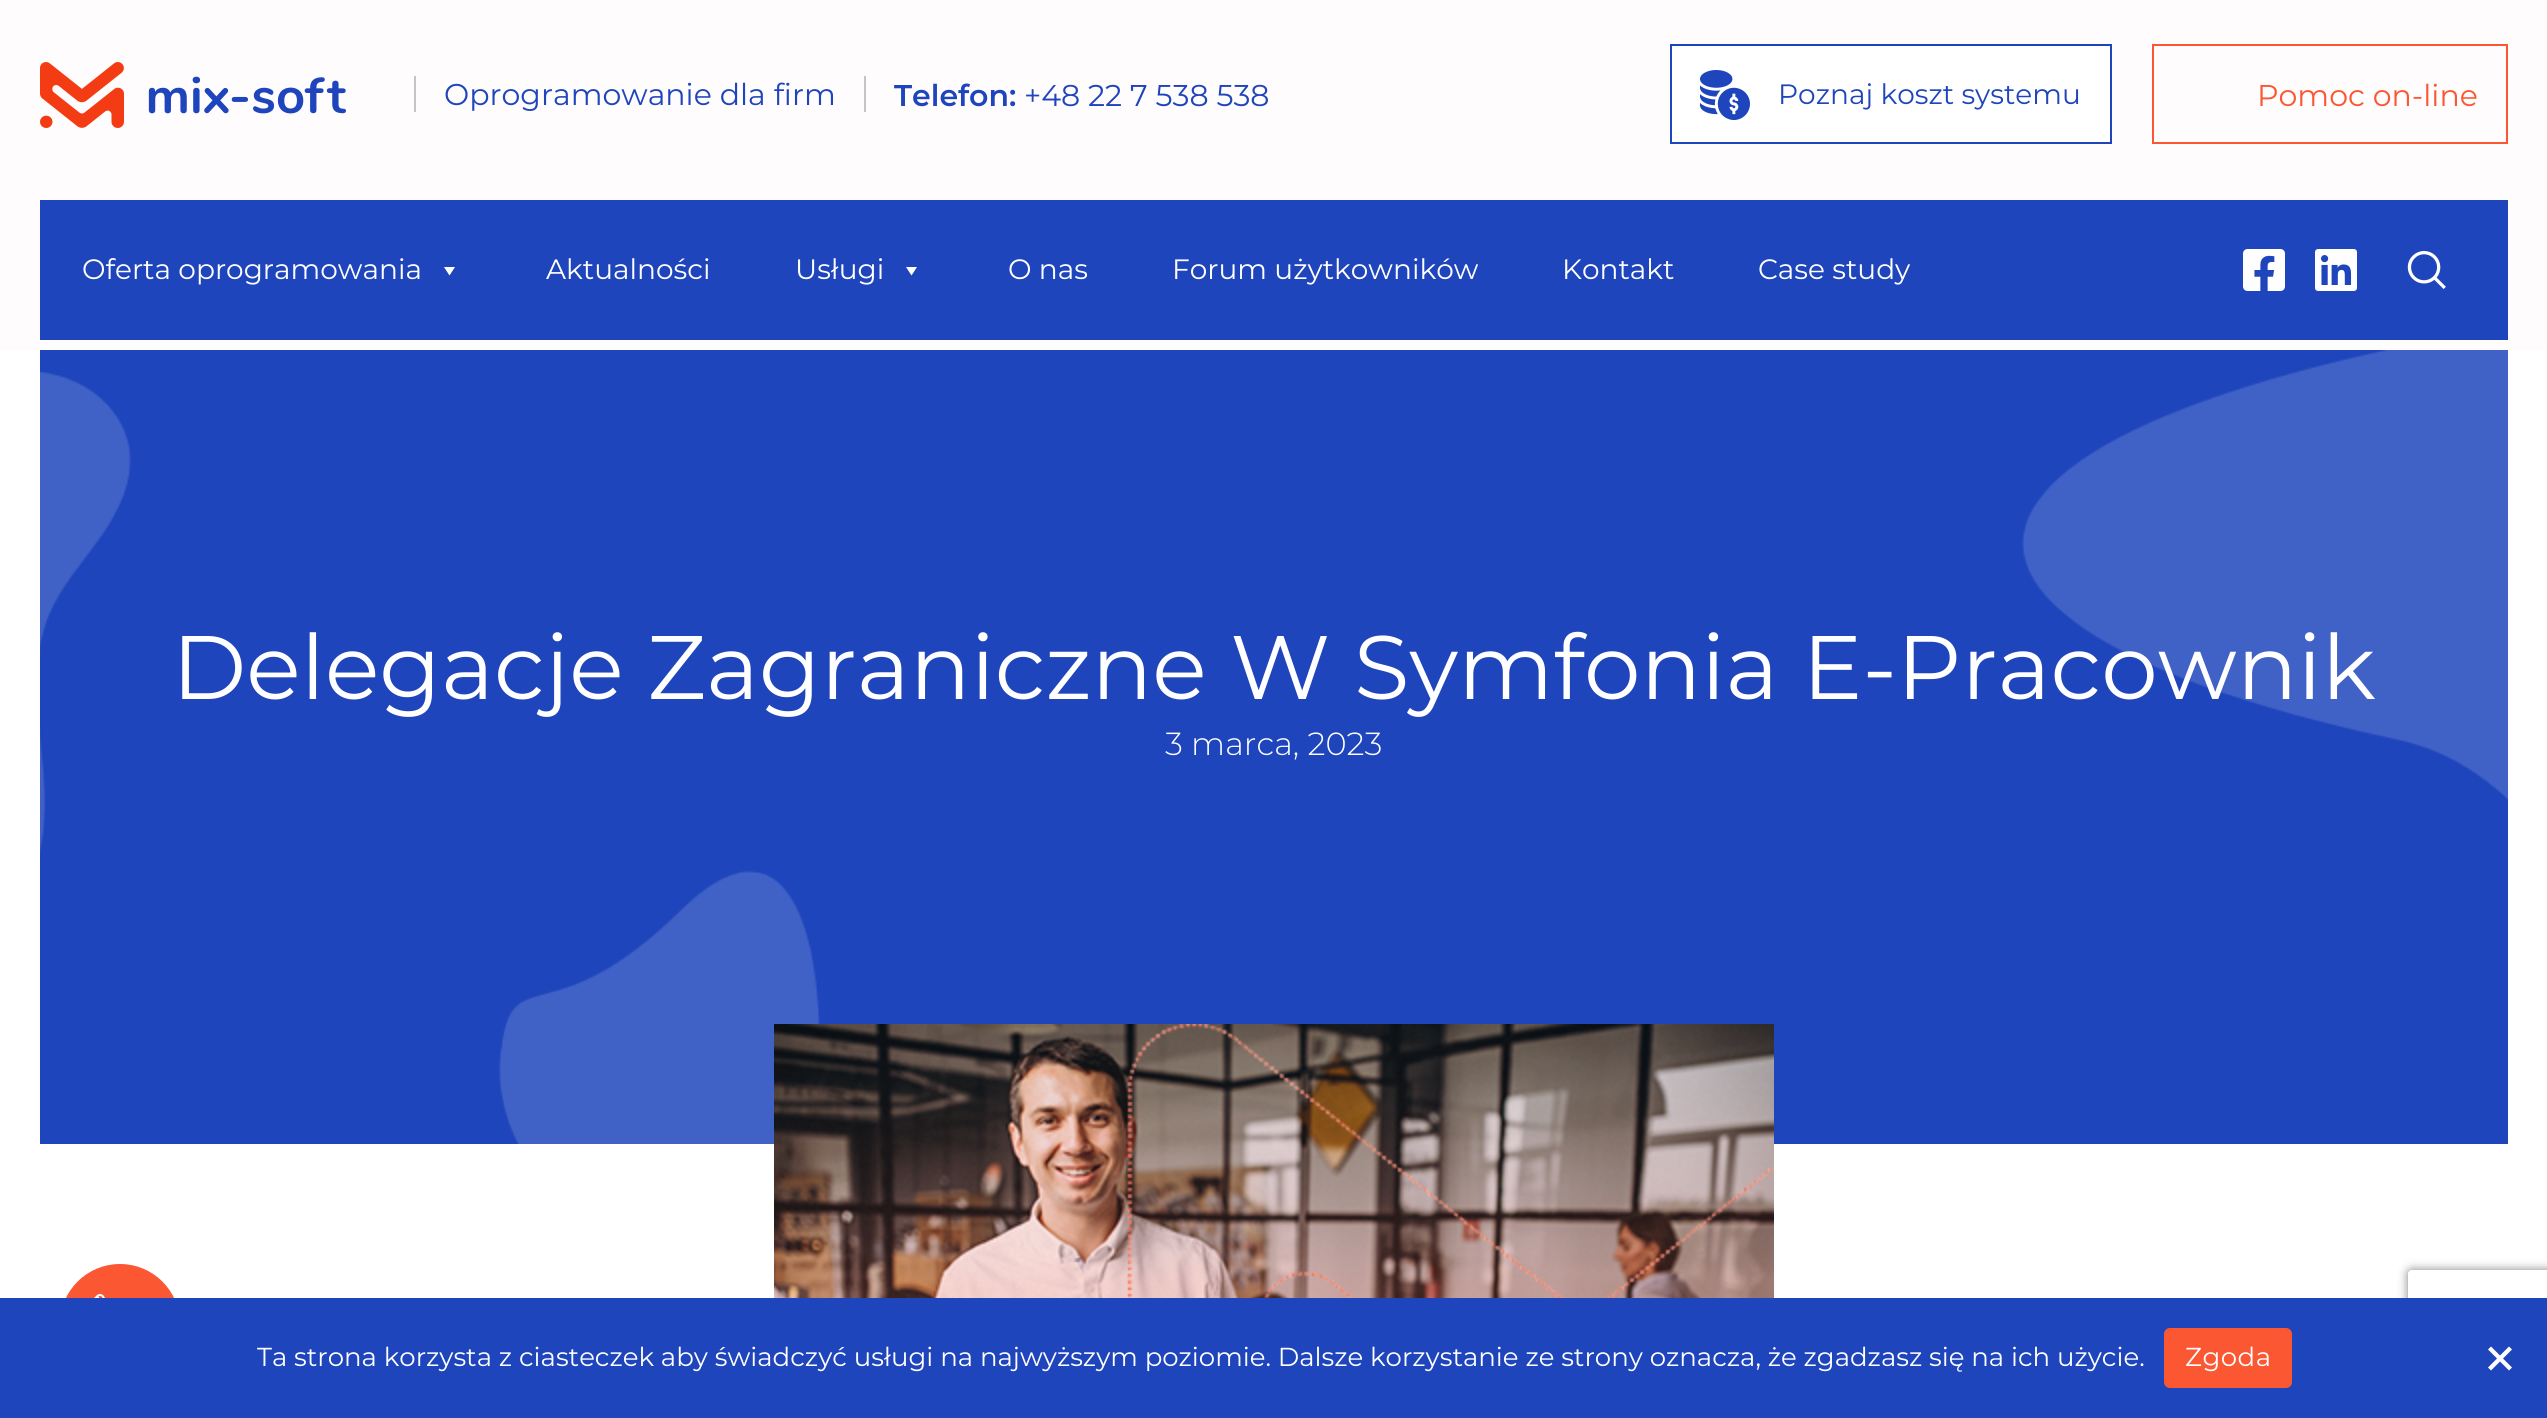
import math
import cairo


def write_spaced(ctx, x, y, s, letter, word):
	ctx.move_to(x, y)
	for ch in s:
		ctx.show_text(ch)
		ctx.rel_move_to(letter + word * (ch == ' '), 0)

def round_path(ctx, x, y, w, h, r):
	ctx.new_sub_path()
	for i, (u, v) in enumerate([(x + w - r, y + h - r), (x + r, y + h - r), (x + r, y + r), (x + w - r, y + r)]):
		ctx.arc(u, v, r, i * math.pi / 2, (i + 1) * math.pi / 2)
	ctx.close_path()

def blur_box(ctx, x, y, w, h, r, blur, alpha):
	ctx.push_group_with_content(cairo.CONTENT_ALPHA)
	ctx.set_operator(cairo.OPERATOR_SOURCE)
	for i in range(15, -16, -2):
		e = blur * i / 6
		if min(w, h) + 2 * e > 0:
			ctx.set_source_rgba(0, 0, 0, alpha * math.erfc((i - 1) / 8.5) / 2)
			round_path(ctx, x - e, y - e, w + 2 * e, h + 2 * e, max(0, min(r + e + blur * .6, min(w, h) / 2 + e)))
			ctx.fill()
	ctx.mask(ctx.pop_group())

def paste(ctx, path, x, y, w, h):
	ctx.save()
	ctx.set_source_surface(cairo.ImageSurface.create_from_png(path), x, y)
	ctx.rectangle(x, y, w, h)
	ctx.fill()
	ctx.restore()

def draw(ctx):
	ctx.set_source_rgb(1, 1, 1)
	ctx.paint()
	ctx.set_source_rgb(1, 0.988, 0.992)
	ctx.rectangle(0, 0, 2547, 350)
	ctx.fill()
	paste(ctx, 'media/1.png', 40, 62, 306, 66)
	ctx.set_source_rgb(0.769, 0.769, 0.769)
	ctx.rectangle(864, 76, 2, 36)
	ctx.fill()
	ctx.rectangle(414, 76, 2, 36)
	ctx.fill()
	ctx.select_font_face('Montserrat')
	ctx.set_font_size(30)
	ctx.set_source_rgb(0.122, 0.271, 0.737)
	ctx.move_to(444, 105)
	ctx.show_text('Oprogramowanie dla firm')
	ctx.select_font_face('Montserrat SemiBold')
	ctx.move_to(894, 106)
	ctx.show_text('Telefon:')
	ctx.select_font_face('Montserrat')
	ctx.move_to(1024, 106)
	ctx.show_text('+48 22 7 538 538')
	ctx.set_source_rgb(1, 1, 1)
	ctx.rectangle(1671, 45, 440, 98)
	ctx.fill_preserve()
	ctx.set_source_rgb(0.122, 0.271, 0.737)
	ctx.stroke()
	paste(ctx, 'media/2.png', 1700, 70, 50, 50)
	ctx.set_font_size(28)
	ctx.move_to(1778, 104)
	ctx.show_text('Poznaj koszt systemu')
	ctx.rectangle(2153, 45, 354, 98)
	ctx.set_source_rgb(0.984, 0.341, 0.2)
	ctx.stroke()
	ctx.set_font_size(30)
	ctx.move_to(2257, 106)
	ctx.show_text('Pomoc on-line')
	ctx.set_source_rgb(0.122, 0.271, 0.737)
	ctx.rectangle(40, 200, 2468, 140)
	ctx.fill()
	ctx.set_font_size(28)
	ctx.set_source_rgb(1, 1, 1)
	ctx.move_to(82, 279)
	ctx.show_text('Oferta oprogramowania')
	ctx.new_path()
	ctx.move_to(455, 267)
	ctx.line_to(449.5, 275.5)
	ctx.line_to(444, 267)
	ctx.close_path()
	ctx.fill()
	ctx.move_to(546, 279)
	ctx.show_text('Aktualności')
	ctx.move_to(795, 279)
	ctx.show_text('Usługi')
	ctx.new_path()
	ctx.move_to(917, 267)
	ctx.line_to(911.5, 275.5)
	ctx.line_to(906, 267)
	ctx.close_path()
	ctx.fill()
	for x, y, s in [
		(1008, 279, 'O nas'),
		(1172, 279, 'Forum użytkowników'),
		(1562, 279, 'Kontakt'),
		(1758, 279, 'Case study'),
	]:
		ctx.move_to(x, y)
		ctx.show_text(s)
	paste(ctx, 'media/3.png', 2243, 249, 42, 42)
	paste(ctx, 'media/4.png', 2315, 249, 42, 42)
	paste(ctx, 'media/5.png', 2407, 251, 39, 38)
	ctx.set_source_rgb(0.122, 0.271, 0.737)
	ctx.rectangle(40, 350, 2468, 794)
	ctx.fill()
	paste(ctx, 'media/6.png', 40, 350, 2468, 794)
	ctx.set_font_size(90)
	ctx.set_source_rgb(1, 1, 1)
	ctx.move_to(172, 699)
	ctx.show_text('Delegacje Zagraniczne W Symfonia E-Pracownik')
	ctx.select_font_face('Montserrat Light')
	ctx.set_font_size(32)
	ctx.move_to(1165, 755)
	ctx.show_text('3 marca, 2023')
	paste(ctx, 'media/7.png', 774, 1024, 1000, 274)
	ctx.set_source_rgb(0.984, 0.341, 0.2)
	ctx.arc(120, 1324, 60, 0, 2 * math.pi)
	ctx.fill()
	paste(ctx, 'media/8.png', 94, 1294, 11, 4)
	ctx.save()
	ctx.set_fill_rule(cairo.FILL_RULE_EVEN_ODD)
	ctx.new_path()
	ctx.move_to(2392, 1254)
	ctx.line_to(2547, 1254)
	ctx.line_to(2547, 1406)
	ctx.line_to(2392, 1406)
	ctx.close_path()
	ctx.move_to(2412, 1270)
	ctx.line_to(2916, 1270)
	ctx.curve_to(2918, 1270, 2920, 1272, 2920, 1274)
	ctx.line_to(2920, 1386)
	ctx.curve_to(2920, 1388, 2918, 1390, 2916, 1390)
	ctx.line_to(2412, 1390)
	ctx.curve_to(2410, 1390, 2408, 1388, 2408, 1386)
	ctx.line_to(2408, 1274)
	ctx.curve_to(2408, 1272, 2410, 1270, 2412, 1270)
	ctx.close_path()
	ctx.clip()
	ctx.set_source_rgb(0.502, 0.502, 0.502)
	blur_box(ctx, 2408, 1270, 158, 120, 4, 5, 1)
	ctx.restore()
	ctx.set_source_rgb(0.122, 0.271, 0.737)
	ctx.rectangle(0, 1298, 2547, 120)
	ctx.fill()
	ctx.select_font_face('Montserrat')
	ctx.set_font_size(26)
	ctx.set_source_rgb(1, 1, 1)
	ctx.move_to(257, 1366)
	ctx.show_text('Ta strona korzysta z ciasteczek aby świadczyć usługi na najwyższym poziomie. Dalsze korzystanie ze strony oznacza, że zgadzasz się na ich użycie.')
	ctx.set_source_rgb(0.984, 0.341, 0.2)
	round_path(ctx, 2164, 1328, 128, 60, 6)
	ctx.fill()
	ctx.set_source_rgb(1, 1, 1)
	write_spaced(ctx, 2185, 1366, 'Zgoda', 0.5, 0)
	ctx.new_path()
	ctx.move_to(2509, 1346.5)
	ctx.line_to(2512, 1349.5)
	ctx.line_to(2491, 1370.5)
	ctx.line_to(2488, 1367.5)
	ctx.close_path()
	ctx.fill()
	ctx.new_path()
	ctx.move_to(2488, 1349.5)
	ctx.line_to(2491, 1346.5)
	ctx.line_to(2512, 1367.5)
	ctx.line_to(2509, 1370.5)
	ctx.close_path()
	ctx.fill()


surface = cairo.ImageSurface(cairo.FORMAT_RGB24, 2547, 1418)
ctx = cairo.Context(surface)
options = cairo.FontOptions()
options.set_hint_metrics(cairo.HINT_METRICS_OFF)
options.set_hint_style(cairo.HINT_STYLE_NONE)
ctx.set_font_options(options)
ctx.set_miter_limit(4)
draw(ctx)
surface.write_to_png('image.png')
